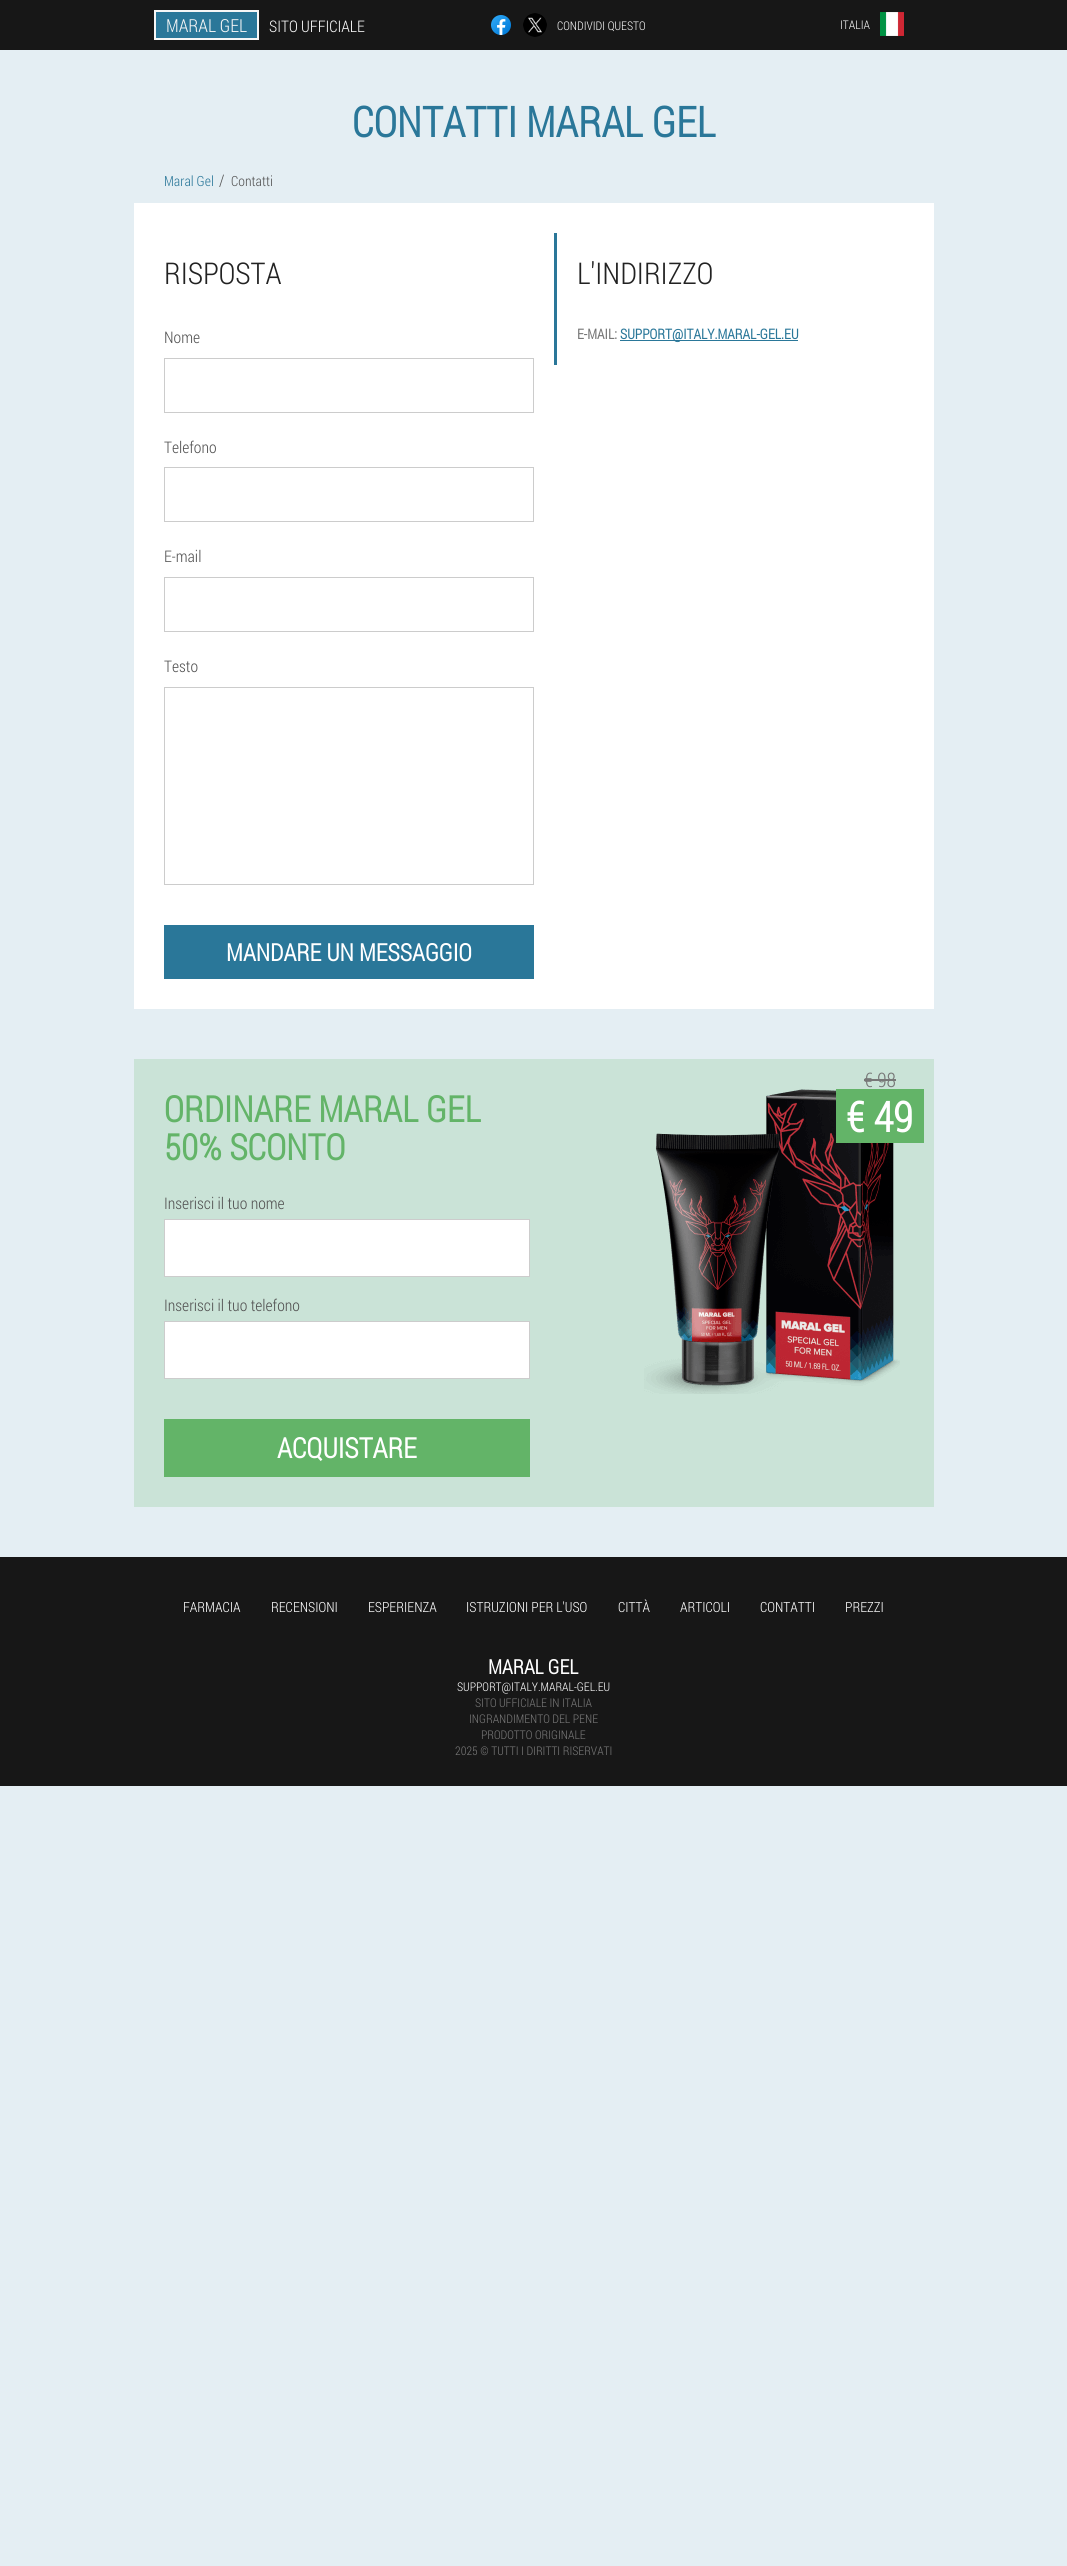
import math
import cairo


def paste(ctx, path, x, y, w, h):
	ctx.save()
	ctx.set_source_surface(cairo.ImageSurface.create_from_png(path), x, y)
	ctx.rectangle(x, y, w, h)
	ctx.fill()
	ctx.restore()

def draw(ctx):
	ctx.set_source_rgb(0.894, 0.933, 0.953)
	ctx.paint()
	ctx.set_source_rgb(0.09, 0.09, 0.09)
	ctx.rectangle(0, 0, 1067, 50)
	ctx.fill()
	ctx.set_source_rgb(0.165, 0.467, 0.6)
	ctx.rectangle(155, 11, 103, 28)
	ctx.fill_preserve()
	ctx.set_source_rgb(0.961, 0.961, 0.961)
	ctx.stroke()
	ctx.select_font_face('Roboto Condensed Light')
	ctx.set_font_size(18)
	ctx.move_to(166, 32)
	ctx.show_text('MARAL GEL')
	ctx.set_font_size(16)
	ctx.move_to(269, 32)
	ctx.show_text('SITO UFFICIALE')
	paste(ctx, 'media/1.png', 491, 15, 20, 20)
	paste(ctx, 'media/2.png', 523, 13, 24, 24)
	ctx.set_font_size(12)
	ctx.move_to(557, 30)
	ctx.show_text('CONDIVIDI QUESTO')
	ctx.move_to(840, 29)
	ctx.show_text('ITALIA')
	paste(ctx, 'media/3.png', 880, 12, 24, 24)
	ctx.select_font_face('Roboto Condensed', cairo.FONT_SLANT_NORMAL, cairo.FONT_WEIGHT_BOLD)
	ctx.set_font_size(42)
	ctx.set_source_rgb(0.165, 0.467, 0.6)
	ctx.move_to(352, 137)
	ctx.show_text('CONTATTI MARAL GEL')
	ctx.select_font_face('Roboto Condensed Light')
	ctx.set_font_size(14)
	ctx.move_to(164, 186)
	ctx.show_text('Maral Gel')
	ctx.set_font_size(16)
	ctx.set_source_rgb(0.329, 0.329, 0.329)
	ctx.move_to(219, 186)
	ctx.show_text('/')
	ctx.set_font_size(14)
	ctx.move_to(231, 186)
	ctx.show_text('Contatti')
	ctx.set_source_rgb(1, 1, 1)
	ctx.rectangle(134, 203, 800, 806)
	ctx.fill()
	ctx.set_font_size(30)
	ctx.set_source_rgb(0.133, 0.133, 0.133)
	ctx.move_to(164, 284)
	ctx.show_text('RISPOSTA')
	ctx.set_font_size(16)
	ctx.set_source_rgb(0.329, 0.329, 0.329)
	ctx.move_to(164, 343)
	ctx.show_text('Nome')
	ctx.rectangle(164.5, 358.5, 369, 54)
	ctx.set_source_rgb(0.8, 0.8, 0.8)
	ctx.set_line_width(1)
	ctx.stroke()
	ctx.set_source_rgb(0.329, 0.329, 0.329)
	ctx.move_to(164, 453)
	ctx.show_text('Telefono')
	ctx.rectangle(164.5, 467.5, 369, 54)
	ctx.set_source_rgb(0.8, 0.8, 0.8)
	ctx.stroke()
	ctx.set_source_rgb(0.329, 0.329, 0.329)
	ctx.move_to(164, 562)
	ctx.show_text('E-mail')
	ctx.rectangle(164.5, 577.5, 369, 54)
	ctx.set_source_rgb(0.8, 0.8, 0.8)
	ctx.stroke()
	ctx.set_source_rgb(0.329, 0.329, 0.329)
	ctx.move_to(164, 672)
	ctx.show_text('Testo')
	ctx.rectangle(164.5, 687.5, 369, 197)
	ctx.set_source_rgb(0.8, 0.8, 0.8)
	ctx.stroke()
	ctx.set_source_rgb(0.165, 0.467, 0.6)
	ctx.rectangle(164, 925, 370, 54)
	ctx.fill()
	ctx.select_font_face('Roboto Condensed', cairo.FONT_SLANT_NORMAL, cairo.FONT_WEIGHT_BOLD)
	ctx.set_font_size(24)
	ctx.set_source_rgb(1, 1, 1)
	ctx.move_to(226, 961)
	ctx.show_text('MANDARE UN MESSAGGIO')
	ctx.set_source_rgb(0.165, 0.467, 0.6)
	ctx.rectangle(554, 233, 3, 132)
	ctx.fill()
	ctx.select_font_face('Roboto Condensed Light')
	ctx.set_font_size(30)
	ctx.set_source_rgb(0.133, 0.133, 0.133)
	ctx.move_to(577, 284)
	ctx.show_text('L\'INDIRIZZO')
	ctx.select_font_face('Roboto Condensed', cairo.FONT_SLANT_NORMAL, cairo.FONT_WEIGHT_BOLD)
	ctx.set_font_size(14)
	ctx.set_source_rgb(0.467, 0.467, 0.467)
	ctx.move_to(577, 339)
	ctx.show_text('E-MAIL:')
	ctx.set_source_rgb(0.165, 0.467, 0.6)
	ctx.rectangle(620, 340, 178, 1)
	ctx.fill()
	ctx.move_to(620, 339)
	ctx.show_text('SUPPORT@ITALY.MARAL-GEL.EU')
	ctx.set_source_rgb(0.792, 0.89, 0.843)
	ctx.rectangle(134, 1059, 800, 448)
	ctx.fill()
	ctx.set_font_size(36)
	ctx.set_source_rgb(0.388, 0.706, 0.408)
	ctx.move_to(164, 1122)
	ctx.show_text('ORDINARE MARAL GEL')
	ctx.move_to(164, 1160)
	ctx.show_text('50% SCONTO')
	ctx.select_font_face('Roboto Condensed Light')
	ctx.set_font_size(16)
	ctx.set_source_rgb(0.329, 0.329, 0.329)
	ctx.move_to(164, 1209)
	ctx.show_text('Inserisci il tuo nome')
	ctx.set_source_rgb(1, 1, 1)
	ctx.rectangle(164.5, 1219.5, 365, 57)
	ctx.fill_preserve()
	ctx.set_source_rgb(0.8, 0.8, 0.8)
	ctx.stroke()
	ctx.set_source_rgb(0.329, 0.329, 0.329)
	ctx.move_to(164, 1311)
	ctx.show_text('Inserisci il tuo telefono')
	ctx.set_source_rgb(1, 1, 1)
	ctx.rectangle(164.5, 1321.5, 365, 57)
	ctx.fill_preserve()
	ctx.set_source_rgb(0.8, 0.8, 0.8)
	ctx.stroke()
	ctx.set_source_rgb(0.388, 0.706, 0.408)
	ctx.rectangle(164, 1419, 366, 58)
	ctx.fill()
	ctx.select_font_face('Roboto Condensed', cairo.FONT_SLANT_NORMAL, cairo.FONT_WEIGHT_BOLD)
	ctx.set_font_size(28)
	ctx.set_source_rgb(1, 1, 1)
	ctx.move_to(277, 1458)
	ctx.show_text('ACQUISTARE')
	paste(ctx, 'media/4.png', 644, 1089, 256, 305)
	ctx.set_source_rgb(0.388, 0.706, 0.408)
	ctx.rectangle(836, 1089, 88, 54)
	ctx.fill()
	ctx.select_font_face('Roboto Condensed Light')
	ctx.set_font_size(20)
	ctx.set_source_rgb(0.467, 0.467, 0.467)
	ctx.move_to(864, 1087)
	ctx.show_text('€ 98')
	ctx.rectangle(864, 1079, 32, 2)
	ctx.fill()
	ctx.select_font_face('Roboto Condensed', cairo.FONT_SLANT_NORMAL, cairo.FONT_WEIGHT_BOLD)
	ctx.set_font_size(42)
	ctx.set_source_rgb(1, 1, 1)
	ctx.move_to(846, 1132)
	ctx.show_text('€ 49')
	ctx.set_source_rgb(0.09, 0.09, 0.09)
	ctx.rectangle(0, 1557, 1067, 229)
	ctx.fill()
	ctx.select_font_face('Roboto Condensed Light')
	ctx.set_font_size(14)
	ctx.set_source_rgb(1, 1, 1)
	for x, y, s in [
		(183, 1612, 'FARMACIA'),
		(271, 1612, 'RECENSIONI'),
		(368, 1612, 'ESPERIENZA'),
		(466, 1612, 'ISTRUZIONI PER L\'USO'),
		(618, 1612, 'CITTÀ'),
		(680, 1612, 'ARTICOLI'),
		(760, 1612, 'CONTATTI'),
		(845, 1612, 'PREZZI'),
	]:
		ctx.move_to(x, y)
		ctx.show_text(s)
	ctx.select_font_face('Roboto Condensed', cairo.FONT_SLANT_NORMAL, cairo.FONT_WEIGHT_BOLD)
	ctx.set_font_size(20)
	ctx.move_to(488, 1674)
	ctx.show_text('MARAL GEL')
	ctx.select_font_face('Roboto Condensed Light')
	ctx.set_font_size(12)
	ctx.move_to(457, 1691)
	ctx.show_text('SUPPORT@ITALY.MARAL-GEL.EU')
	ctx.set_source_rgb(0.467, 0.467, 0.467)
	for x, y, s in [
		(475, 1707, 'SITO UFFICIALE IN ITALIA'),
		(469, 1723, 'INGRANDIMENTO DEL PENE'),
		(481, 1739, 'PRODOTTO ORIGINALE'),
		(455, 1755, '2025 © TUTTI I DIRITTI RISERVATI'),
	]:
		ctx.move_to(x, y)
		ctx.show_text(s)


surface = cairo.ImageSurface(cairo.FORMAT_RGB24, 1067, 2566)
ctx = cairo.Context(surface)
options = cairo.FontOptions()
options.set_hint_metrics(cairo.HINT_METRICS_OFF)
options.set_hint_style(cairo.HINT_STYLE_NONE)
ctx.set_font_options(options)
ctx.set_miter_limit(4)
draw(ctx)
surface.write_to_png('image.png')
